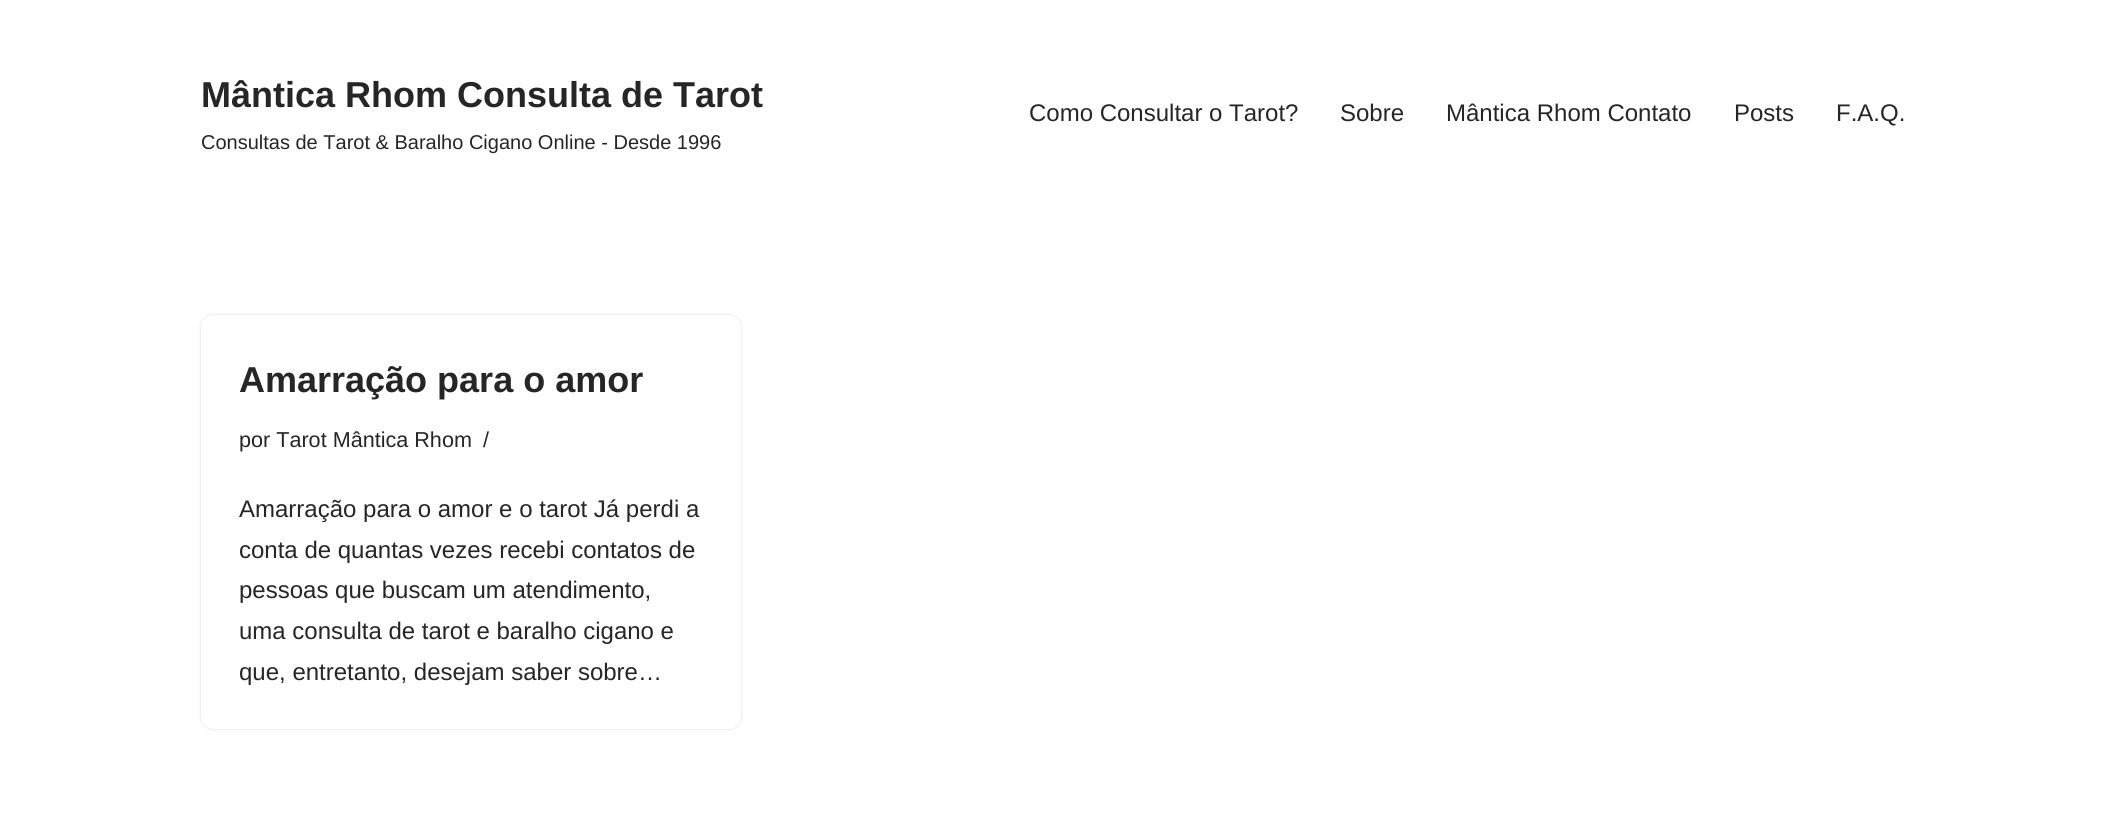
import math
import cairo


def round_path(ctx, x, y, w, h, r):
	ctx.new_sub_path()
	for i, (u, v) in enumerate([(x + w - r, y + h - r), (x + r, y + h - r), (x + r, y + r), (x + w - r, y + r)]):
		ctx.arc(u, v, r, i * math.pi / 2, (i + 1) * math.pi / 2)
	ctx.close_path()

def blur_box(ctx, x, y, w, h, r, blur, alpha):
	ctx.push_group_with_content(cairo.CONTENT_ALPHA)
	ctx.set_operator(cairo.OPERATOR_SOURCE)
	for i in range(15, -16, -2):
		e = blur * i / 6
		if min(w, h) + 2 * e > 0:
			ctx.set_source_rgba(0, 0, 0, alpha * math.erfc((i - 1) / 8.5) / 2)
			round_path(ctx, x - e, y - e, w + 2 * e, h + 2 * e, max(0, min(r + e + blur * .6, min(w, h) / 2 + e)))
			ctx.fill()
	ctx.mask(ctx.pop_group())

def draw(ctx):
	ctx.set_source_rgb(1, 1, 1)
	ctx.paint()
	ctx.select_font_face('Liberation Sans', cairo.FONT_SLANT_NORMAL, cairo.FONT_WEIGHT_BOLD)
	ctx.set_font_size(36)
	ctx.set_source_rgb(0.153, 0.149, 0.149)
	ctx.move_to(201, 107)
	ctx.show_text('Mântica Rhom Consulta de Tarot')
	ctx.select_font_face('Liberation Sans')
	ctx.set_font_size(20)
	ctx.move_to(201, 149)
	ctx.show_text('Consultas de Tarot & Baralho Cigano Online - Desde 1996')
	ctx.set_font_size(24)
	for x, y, s in [
		(1029, 121, 'Como Consultar o Tarot?'),
		(1340, 121, 'Sobre'),
		(1446, 121, 'Mântica Rhom Contato'),
		(1734, 121, 'Posts'),
		(1836, 121, 'F.A.Q.'),
	]:
		ctx.move_to(x, y)
		ctx.show_text(s)
	ctx.set_source_rgb(0, 0, 0)
	blur_box(ctx, 201, 315, 540, 414, 12, 1.5, 0.15)
	ctx.set_source_rgb(1, 1, 1)
	round_path(ctx, 201, 315, 540, 414, 12)
	ctx.fill()
	ctx.select_font_face('Liberation Sans', cairo.FONT_SLANT_NORMAL, cairo.FONT_WEIGHT_BOLD)
	ctx.set_font_size(36)
	ctx.set_source_rgb(0.153, 0.149, 0.149)
	ctx.move_to(239, 392)
	ctx.show_text('Amarração para o amor')
	ctx.select_font_face('Liberation Sans')
	ctx.set_font_size(21.6)
	ctx.move_to(239, 447)
	ctx.show_text('por Tarot Mântica Rhom')
	ctx.move_to(483, 447)
	ctx.show_text('/')
	ctx.set_font_size(24)
	for x, y, s in [
		(239, 517, 'Amarração para o amor e o tarot Já perdi a'),
		(239, 558, 'conta de quantas vezes recebi contatos de'),
		(239, 598, 'pessoas que buscam um atendimento,'),
		(239, 639, 'uma consulta de tarot e baralho cigano e'),
		(239, 680, 'que, entretanto, desejam saber sobre…'),
	]:
		ctx.move_to(x, y)
		ctx.show_text(s)


surface = cairo.ImageSurface(cairo.FORMAT_RGB24, 2112, 827)
ctx = cairo.Context(surface)
options = cairo.FontOptions()
options.set_hint_metrics(cairo.HINT_METRICS_OFF)
options.set_hint_style(cairo.HINT_STYLE_NONE)
ctx.set_font_options(options)
ctx.set_miter_limit(4)
draw(ctx)
surface.write_to_png('image.png')
